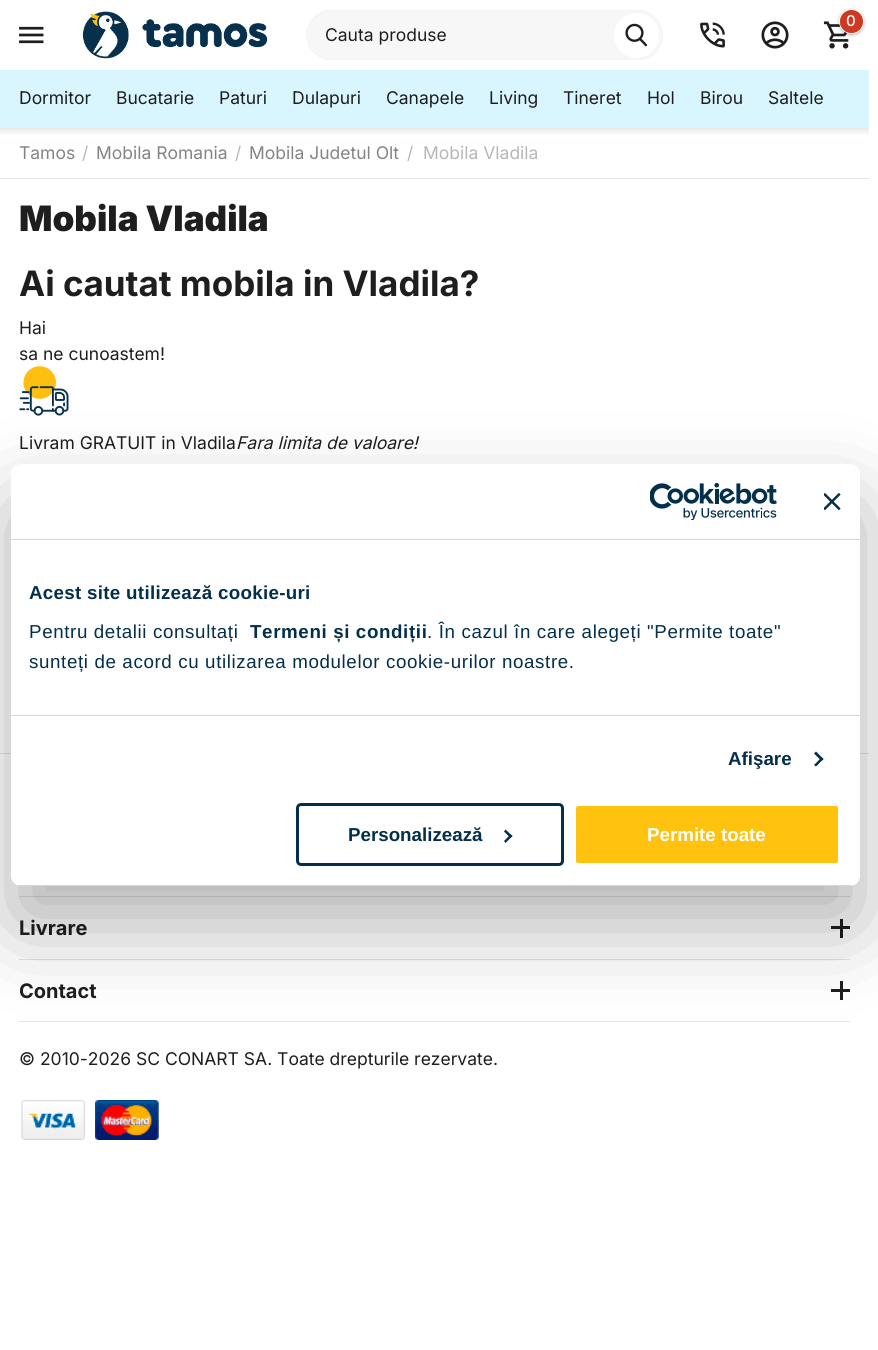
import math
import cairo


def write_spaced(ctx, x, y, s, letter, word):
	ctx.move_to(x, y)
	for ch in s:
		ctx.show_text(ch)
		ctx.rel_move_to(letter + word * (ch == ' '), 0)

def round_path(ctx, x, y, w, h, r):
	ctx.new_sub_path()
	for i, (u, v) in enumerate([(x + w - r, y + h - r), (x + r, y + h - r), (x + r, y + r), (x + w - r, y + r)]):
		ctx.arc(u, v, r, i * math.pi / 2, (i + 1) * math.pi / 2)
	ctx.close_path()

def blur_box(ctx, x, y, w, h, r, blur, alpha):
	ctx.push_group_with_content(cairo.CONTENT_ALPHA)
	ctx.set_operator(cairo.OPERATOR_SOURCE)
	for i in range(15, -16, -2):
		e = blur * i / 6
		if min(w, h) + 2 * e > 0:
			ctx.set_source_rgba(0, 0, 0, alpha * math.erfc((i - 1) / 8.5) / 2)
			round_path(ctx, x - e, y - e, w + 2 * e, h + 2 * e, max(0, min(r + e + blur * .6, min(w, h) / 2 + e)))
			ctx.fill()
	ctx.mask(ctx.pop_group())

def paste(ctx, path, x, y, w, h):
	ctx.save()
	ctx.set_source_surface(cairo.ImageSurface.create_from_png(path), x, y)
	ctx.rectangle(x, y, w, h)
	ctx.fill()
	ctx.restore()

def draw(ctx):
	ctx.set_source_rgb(1, 1, 1)
	ctx.paint()
	paste(ctx, 'media/1.png', 19, 26, 25, 18)
	paste(ctx, 'media/2.png', 82, 11, 186, 48)
	paste(ctx, 'media/3.png', 761, 21, 28, 28)
	paste(ctx, 'media/4.png', 823, 21, 26, 28)
	ctx.set_source_rgb(0, 0, 0)
	blur_box(ctx, 840, 11, 23, 23, 11.5, 2, 0.5)
	ctx.arc(851.5, 21.5, 12, 0, 2 * math.pi)
	ctx.set_source_rgb(1, 1, 1)
	ctx.set_line_width(1)
	ctx.stroke()
	ctx.set_source_rgb(0.816, 0.224, 0.129)
	ctx.arc(851.5, 21.5, 11.5, 0, 2 * math.pi)
	ctx.fill()
	ctx.select_font_face('Inter Medium')
	ctx.set_font_size(15)
	ctx.set_source_rgb(1, 1, 1)
	ctx.move_to(846, 26)
	ctx.show_text('0')
	ctx.set_source_rgb(0.965, 0.965, 0.965)
	round_path(ctx, 306.5, 10.5, 356, 49, 24.5)
	ctx.fill_preserve()
	ctx.set_source_rgb(0.953, 0.953, 0.953)
	ctx.stroke()
	ctx.select_font_face('Inter')
	ctx.set_font_size(17.5)
	ctx.set_source_rgb(0.118, 0.118, 0.118)
	ctx.move_to(325, 41)
	ctx.show_text('Cauta produse')
	ctx.set_source_rgb(1, 1, 1)
	ctx.new_path()
	ctx.arc(636.5, 35.5, 22.5, 0, 2 * math.pi)
	ctx.fill()
	paste(ctx, 'media/5.png', 625, 23, 23, 24)
	paste(ctx, 'media/6.png', 700, 22, 25, 26)
	ctx.set_source_rgb(0.851, 0.961, 1)
	ctx.rectangle(0, 70, 869, 58)
	ctx.fill()
	ctx.set_source_rgb(0.118, 0.118, 0.118)
	for x, y, s in [
		(19, 104, 'Dormitor'),
		(116, 104, 'Bucatarie'),
		(219, 104, 'Paturi'),
		(292, 104, 'Dulapuri'),
		(386, 104, 'Canapele'),
		(489, 104, 'Living'),
		(563, 104, 'Tineret'),
		(647, 104, 'Hol'),
		(700, 104, 'Birou'),
		(768, 104, 'Saltele'),
	]:
		ctx.move_to(x, y)
		ctx.show_text(s)
	gradient = cairo.LinearGradient(434, 127, 434, 136)
	gradient.add_color_stop_rgba(0, 0.902, 0.902, 0.902, 1)
	gradient.add_color_stop_rgba(1, 1, 1, 1, 1)
	ctx.set_source(gradient)
	ctx.rectangle(0, 128, 869, 7)
	ctx.fill()
	ctx.set_source_rgb(0.894, 0.894, 0.894)
	ctx.rectangle(0, 178, 869, 1)
	ctx.fill()
	ctx.set_source_rgb(0.518, 0.518, 0.518)
	ctx.move_to(19, 159)
	ctx.show_text('Tamos')
	ctx.set_source_rgb(0.718, 0.718, 0.718)
	ctx.move_to(82, 159)
	ctx.show_text('/')
	ctx.set_source_rgb(0.518, 0.518, 0.518)
	ctx.move_to(96, 159)
	ctx.show_text('Mobila Romania')
	ctx.set_source_rgb(0.718, 0.718, 0.718)
	ctx.move_to(235, 159)
	ctx.show_text('/')
	ctx.set_source_rgb(0.518, 0.518, 0.518)
	ctx.move_to(249, 159)
	ctx.show_text('Mobila Judetul Olt')
	ctx.set_source_rgb(0.718, 0.718, 0.718)
	ctx.move_to(407, 159)
	ctx.show_text('/')
	ctx.move_to(423, 159)
	ctx.show_text('Mobila Vladila')
	ctx.select_font_face('Inter Black')
	ctx.set_font_size(35)
	ctx.set_source_rgb(0.118, 0.118, 0.118)
	ctx.move_to(19, 231)
	ctx.show_text('Mobila Vladila')
	ctx.select_font_face('Inter', cairo.FONT_SLANT_NORMAL, cairo.FONT_WEIGHT_BOLD)
	ctx.move_to(19, 296)
	ctx.show_text('Ai cautat mobila in Vladila?')
	ctx.select_font_face('Inter')
	ctx.set_font_size(17.5)
	ctx.move_to(19, 334)
	ctx.show_text('Hai')
	ctx.move_to(19, 360)
	ctx.show_text('sa ne cunoastem!')
	paste(ctx, 'media/7.png', 19, 366, 50, 50)
	ctx.move_to(19, 449)
	ctx.show_text('Livram GRATUIT in Vladila')
	ctx.select_font_face('Inter', cairo.FONT_SLANT_ITALIC)
	ctx.move_to(236, 449)
	ctx.show_text('Fara limita de valoare!')
	ctx.set_source_rgb(0.894, 0.894, 0.894)
	ctx.rectangle(0, 753, 869, 1)
	ctx.rectangle(19, 896, 831, 1)
	ctx.rectangle(19, 959, 831, 1)
	ctx.fill()
	ctx.select_font_face('Inter', cairo.FONT_SLANT_NORMAL, cairo.FONT_WEIGHT_BOLD)
	ctx.set_font_size(20)
	ctx.set_source_rgb(0.118, 0.118, 0.118)
	ctx.move_to(19, 935)
	ctx.show_text('Livrare')
	ctx.rectangle(840, 919, 3, 19)
	ctx.rectangle(831, 926, 19, 3)
	ctx.fill()
	ctx.set_source_rgb(0.894, 0.894, 0.894)
	ctx.rectangle(19, 1021, 831, 1)
	ctx.fill()
	ctx.set_source_rgb(0.118, 0.118, 0.118)
	ctx.move_to(19, 998)
	ctx.show_text('Contact')
	ctx.rectangle(840, 981, 3, 19)
	ctx.fill()
	ctx.rectangle(831, 989, 19, 3)
	ctx.fill()
	ctx.select_font_face('Inter')
	ctx.set_font_size(17.5)
	ctx.move_to(19, 1065)
	ctx.show_text('© 2010-2026 SC CONART SA. Toate drepturile rezervate.')
	paste(ctx, 'media/8.png', 21, 1100, 64, 40)
	paste(ctx, 'media/9.png', 95, 1100, 64, 40)
	ctx.set_source_rgb(0, 0, 0)
	blur_box(ctx, 11, 504, 849, 422, 10, 42.5, 0.3)
	ctx.set_source_rgb(1, 1, 1)
	round_path(ctx, 11, 464, 849, 422, 10)
	ctx.fill()
	ctx.set_source_rgb(0.839, 0.839, 0.839)
	ctx.rectangle(11, 539, 849, 1)
	ctx.fill()
	paste(ctx, 'media/10.png', 650, 483, 127, 37)
	paste(ctx, 'media/11.png', 824, 493, 17, 17)
	ctx.rectangle(11, 715, 849, 1)
	ctx.fill()
	ctx.select_font_face('Liberation Sans', cairo.FONT_SLANT_NORMAL, cairo.FONT_WEIGHT_BOLD)
	ctx.set_font_size(18.75)
	ctx.set_source_rgb(0.012, 0.184, 0.294)
	write_spaced(ctx, 29, 599, 'Acest site utilizează cookie-uri', 0.3, 0)
	ctx.select_font_face('Liberation Sans')
	write_spaced(ctx, 29, 638, 'Pentru detalii consultați', 0.62, 0)
	ctx.select_font_face('Liberation Sans', cairo.FONT_SLANT_NORMAL, cairo.FONT_WEIGHT_BOLD)
	write_spaced(ctx, 250, 638, 'Termeni și condiții', 0.62, 0)
	ctx.select_font_face('Liberation Sans')
	write_spaced(ctx, 427, 638, '. În cazul în care alegeți "Permite toate"', 0.62, 0)
	write_spaced(ctx, 29, 668, 'sunteți de acord cu utilizarea modulelor cookie-urilor noastre.', 0.62, 0)
	ctx.select_font_face('Liberation Sans', cairo.FONT_SLANT_NORMAL, cairo.FONT_WEIGHT_BOLD)
	ctx.move_to(728, 765)
	ctx.show_text('Afişare')
	ctx.new_path()
	ctx.move_to(816, 751.5)
	ctx.line_to(823.5, 759)
	ctx.line_to(821.5, 761)
	ctx.line_to(814, 753.5)
	ctx.close_path()
	ctx.fill()
	ctx.new_path()
	ctx.move_to(821.5, 757.5)
	ctx.line_to(823.5, 759)
	ctx.line_to(816, 766.5)
	ctx.line_to(814, 765)
	ctx.close_path()
	ctx.fill()
	ctx.save()
	round_path(ctx, 11, 464, 849, 422, 10)
	ctx.clip()
	ctx.set_source_rgb(0.839, 0.839, 0.839)
	ctx.rectangle(11, 885, 849, 1)
	ctx.fill()
	ctx.restore()
	round_path(ctx, 297.5, 804.5, 265, 60, 3.5)
	ctx.set_line_width(3)
	ctx.stroke()
	ctx.move_to(348, 841)
	ctx.show_text('Personalizează')
	ctx.new_path()
	ctx.move_to(505.5, 829.5)
	ctx.line_to(512.5, 836)
	ctx.line_to(510.5, 838)
	ctx.line_to(504, 831.5)
	ctx.close_path()
	ctx.fill()
	ctx.new_path()
	ctx.move_to(510.5, 834.5)
	ctx.line_to(512.5, 836)
	ctx.line_to(505.5, 843)
	ctx.line_to(504, 841)
	ctx.close_path()
	ctx.fill()
	ctx.set_source_rgb(1, 0.761, 0.059)
	round_path(ctx, 574.5, 804.5, 265, 60, 3.5)
	ctx.fill_preserve()
	ctx.set_source_rgb(1, 1, 1)
	ctx.stroke()
	ctx.move_to(647, 841)
	ctx.show_text('Permite toate')


surface = cairo.ImageSurface(cairo.FORMAT_RGB24, 878, 1350)
ctx = cairo.Context(surface)
options = cairo.FontOptions()
options.set_hint_metrics(cairo.HINT_METRICS_OFF)
options.set_hint_style(cairo.HINT_STYLE_NONE)
ctx.set_font_options(options)
ctx.set_miter_limit(4)
draw(ctx)
surface.write_to_png('image.png')
